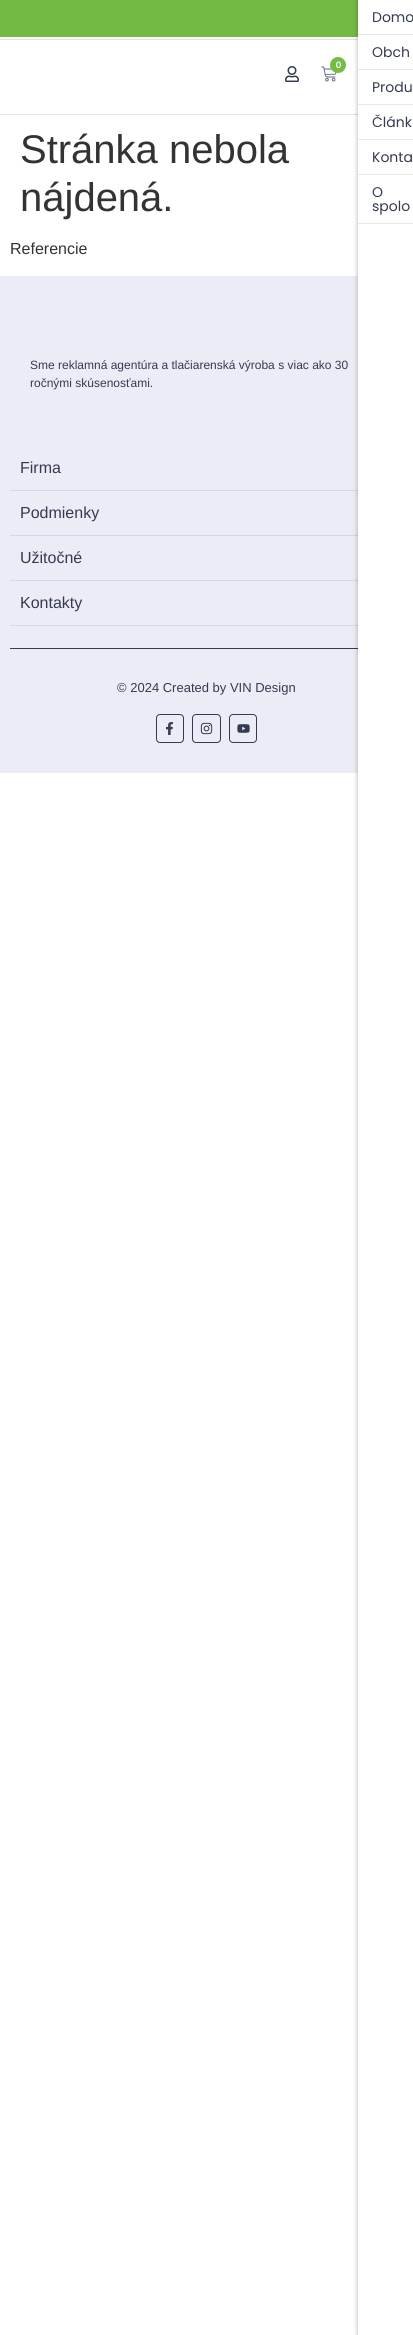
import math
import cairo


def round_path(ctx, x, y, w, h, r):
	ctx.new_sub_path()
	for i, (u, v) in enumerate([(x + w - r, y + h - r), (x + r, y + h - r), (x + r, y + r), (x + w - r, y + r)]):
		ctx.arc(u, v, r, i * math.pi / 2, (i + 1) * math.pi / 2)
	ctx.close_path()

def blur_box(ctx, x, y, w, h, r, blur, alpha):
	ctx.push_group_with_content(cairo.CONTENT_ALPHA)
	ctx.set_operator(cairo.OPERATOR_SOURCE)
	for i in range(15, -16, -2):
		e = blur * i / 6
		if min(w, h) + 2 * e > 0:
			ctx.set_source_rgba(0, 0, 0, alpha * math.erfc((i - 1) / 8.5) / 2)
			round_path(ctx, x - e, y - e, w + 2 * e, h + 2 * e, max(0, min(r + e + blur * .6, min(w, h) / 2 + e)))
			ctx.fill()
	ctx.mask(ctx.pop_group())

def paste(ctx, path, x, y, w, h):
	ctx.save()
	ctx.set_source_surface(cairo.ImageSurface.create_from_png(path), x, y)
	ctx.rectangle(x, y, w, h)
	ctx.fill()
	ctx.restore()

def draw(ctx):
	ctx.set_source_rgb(1, 1, 1)
	ctx.paint()
	ctx.select_font_face('Liberation Sans')
	ctx.set_font_size(40)
	ctx.set_source_rgb(0.2, 0.2, 0.2)
	ctx.move_to(20, 163)
	ctx.show_text('Stránka nebola')
	ctx.move_to(20, 211)
	ctx.show_text('nájdená.')
	ctx.set_font_size(16)
	ctx.move_to(10, 254)
	ctx.show_text('Referencie')
	ctx.set_source_rgb(0.447, 0.729, 0.263)
	ctx.rectangle(0, 0, 358, 37)
	ctx.fill()
	paste(ctx, 'media/1.png', 321, 66, 16, 16)
	ctx.set_source_rgb(0.455, 0.737, 0.267)
	ctx.arc(338, 65, 8, 0, 2 * math.pi)
	ctx.fill()
	ctx.select_font_face('Puritan', cairo.FONT_SLANT_NORMAL, cairo.FONT_WEIGHT_BOLD)
	ctx.set_font_size(10)
	ctx.set_source_rgb(1, 1, 1)
	ctx.move_to(336, 68)
	ctx.show_text('0')
	ctx.set_source_rgb(0.886, 0.886, 0.886)
	ctx.rectangle(0, 39, 358, 1)
	ctx.rectangle(0, 114, 358, 1)
	ctx.fill()
	ctx.set_source_rgb(0.925, 0.925, 0.965)
	ctx.rectangle(0, 276, 358, 497)
	ctx.fill()
	ctx.set_source_rgb(0.835, 0.847, 0.863)
	ctx.rectangle(10, 490, 348, 1)
	ctx.rectangle(10, 535, 348, 1)
	ctx.rectangle(10, 580, 348, 1)
	ctx.rectangle(10, 625, 348, 1)
	ctx.fill()
	ctx.set_source_rgb(0.204, 0.231, 0.314)
	ctx.rectangle(10, 648, 348, 1)
	ctx.fill()
	ctx.set_source_rgb(0, 0, 0)
	blur_box(ctx, 358, 0, 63, 2335, 0, 2.5, 0.3)
	ctx.set_source_rgb(1, 1, 1)
	ctx.rectangle(358, 0, 55, 2335)
	ctx.fill()
	ctx.set_source_rgb(0.91, 0.91, 0.91)
	ctx.rectangle(358, 34, 55, 1)
	ctx.fill()
	ctx.select_font_face('Poppins')
	ctx.set_font_size(14)
	ctx.set_source_rgb(0.204, 0.231, 0.314)
	ctx.move_to(372, 22)
	ctx.show_text('Domo')
	ctx.set_source_rgb(0.91, 0.91, 0.91)
	ctx.rectangle(358, 69, 55, 1)
	ctx.fill()
	ctx.set_source_rgb(0.204, 0.231, 0.314)
	ctx.move_to(372, 57)
	ctx.show_text('Obch')
	ctx.set_source_rgb(0.91, 0.91, 0.91)
	ctx.rectangle(358, 104, 55, 1)
	ctx.fill()
	ctx.set_source_rgb(0.204, 0.231, 0.314)
	ctx.move_to(372, 92)
	ctx.show_text('Produ')
	ctx.set_source_rgb(0.91, 0.91, 0.91)
	ctx.rectangle(358, 139, 55, 1)
	ctx.fill()
	ctx.set_source_rgb(0.204, 0.231, 0.314)
	ctx.move_to(372, 127)
	ctx.show_text('Článk')
	ctx.set_source_rgb(0.91, 0.91, 0.91)
	ctx.rectangle(358, 174, 55, 1)
	ctx.fill()
	ctx.set_source_rgb(0.204, 0.231, 0.314)
	ctx.move_to(372, 162)
	ctx.show_text('Konta')
	ctx.set_source_rgb(0.91, 0.91, 0.91)
	ctx.rectangle(358, 223, 55, 1)
	ctx.fill()
	ctx.set_source_rgb(0.204, 0.231, 0.314)
	ctx.move_to(372, 197)
	ctx.show_text('O')
	ctx.move_to(372, 211)
	ctx.show_text('spolo')
	paste(ctx, 'media/2.png', 285, 66, 14, 16)
	ctx.select_font_face('Liberation Sans')
	ctx.set_font_size(12)
	ctx.move_to(30, 369)
	ctx.show_text('Sme reklamná agentúra a tlačiarenská výroba s viac ako 30')
	ctx.move_to(30, 387)
	ctx.show_text('ročnými skúsenosťami.')
	ctx.set_font_size(16)
	for x, y, s in [
		(20, 473, 'Firma'),
		(20, 518, 'Podmienky'),
		(20, 563, 'Užitočné'),
		(20, 608, 'Kontakty'),
	]:
		ctx.move_to(x, y)
		ctx.show_text(s)
	ctx.set_font_size(13)
	ctx.move_to(117, 692)
	ctx.show_text('© 2024 Created by VIN Design')
	round_path(ctx, 156.5, 714.5, 27, 28, 3.5)
	ctx.set_line_width(1)
	ctx.stroke()
	paste(ctx, 'media/3.png', 166, 722, 7, 13)
	round_path(ctx, 192.5, 714.5, 28, 28, 3.5)
	ctx.stroke()
	paste(ctx, 'media/4.png', 200, 722, 13, 13)
	round_path(ctx, 229.5, 714.5, 27, 28, 3.5)
	ctx.stroke()
	paste(ctx, 'media/5.png', 237, 724, 13, 9)


surface = cairo.ImageSurface(cairo.FORMAT_RGB24, 413, 2335)
ctx = cairo.Context(surface)
options = cairo.FontOptions()
options.set_hint_metrics(cairo.HINT_METRICS_OFF)
options.set_hint_style(cairo.HINT_STYLE_NONE)
ctx.set_font_options(options)
ctx.set_miter_limit(4)
draw(ctx)
surface.write_to_png('image.png')
